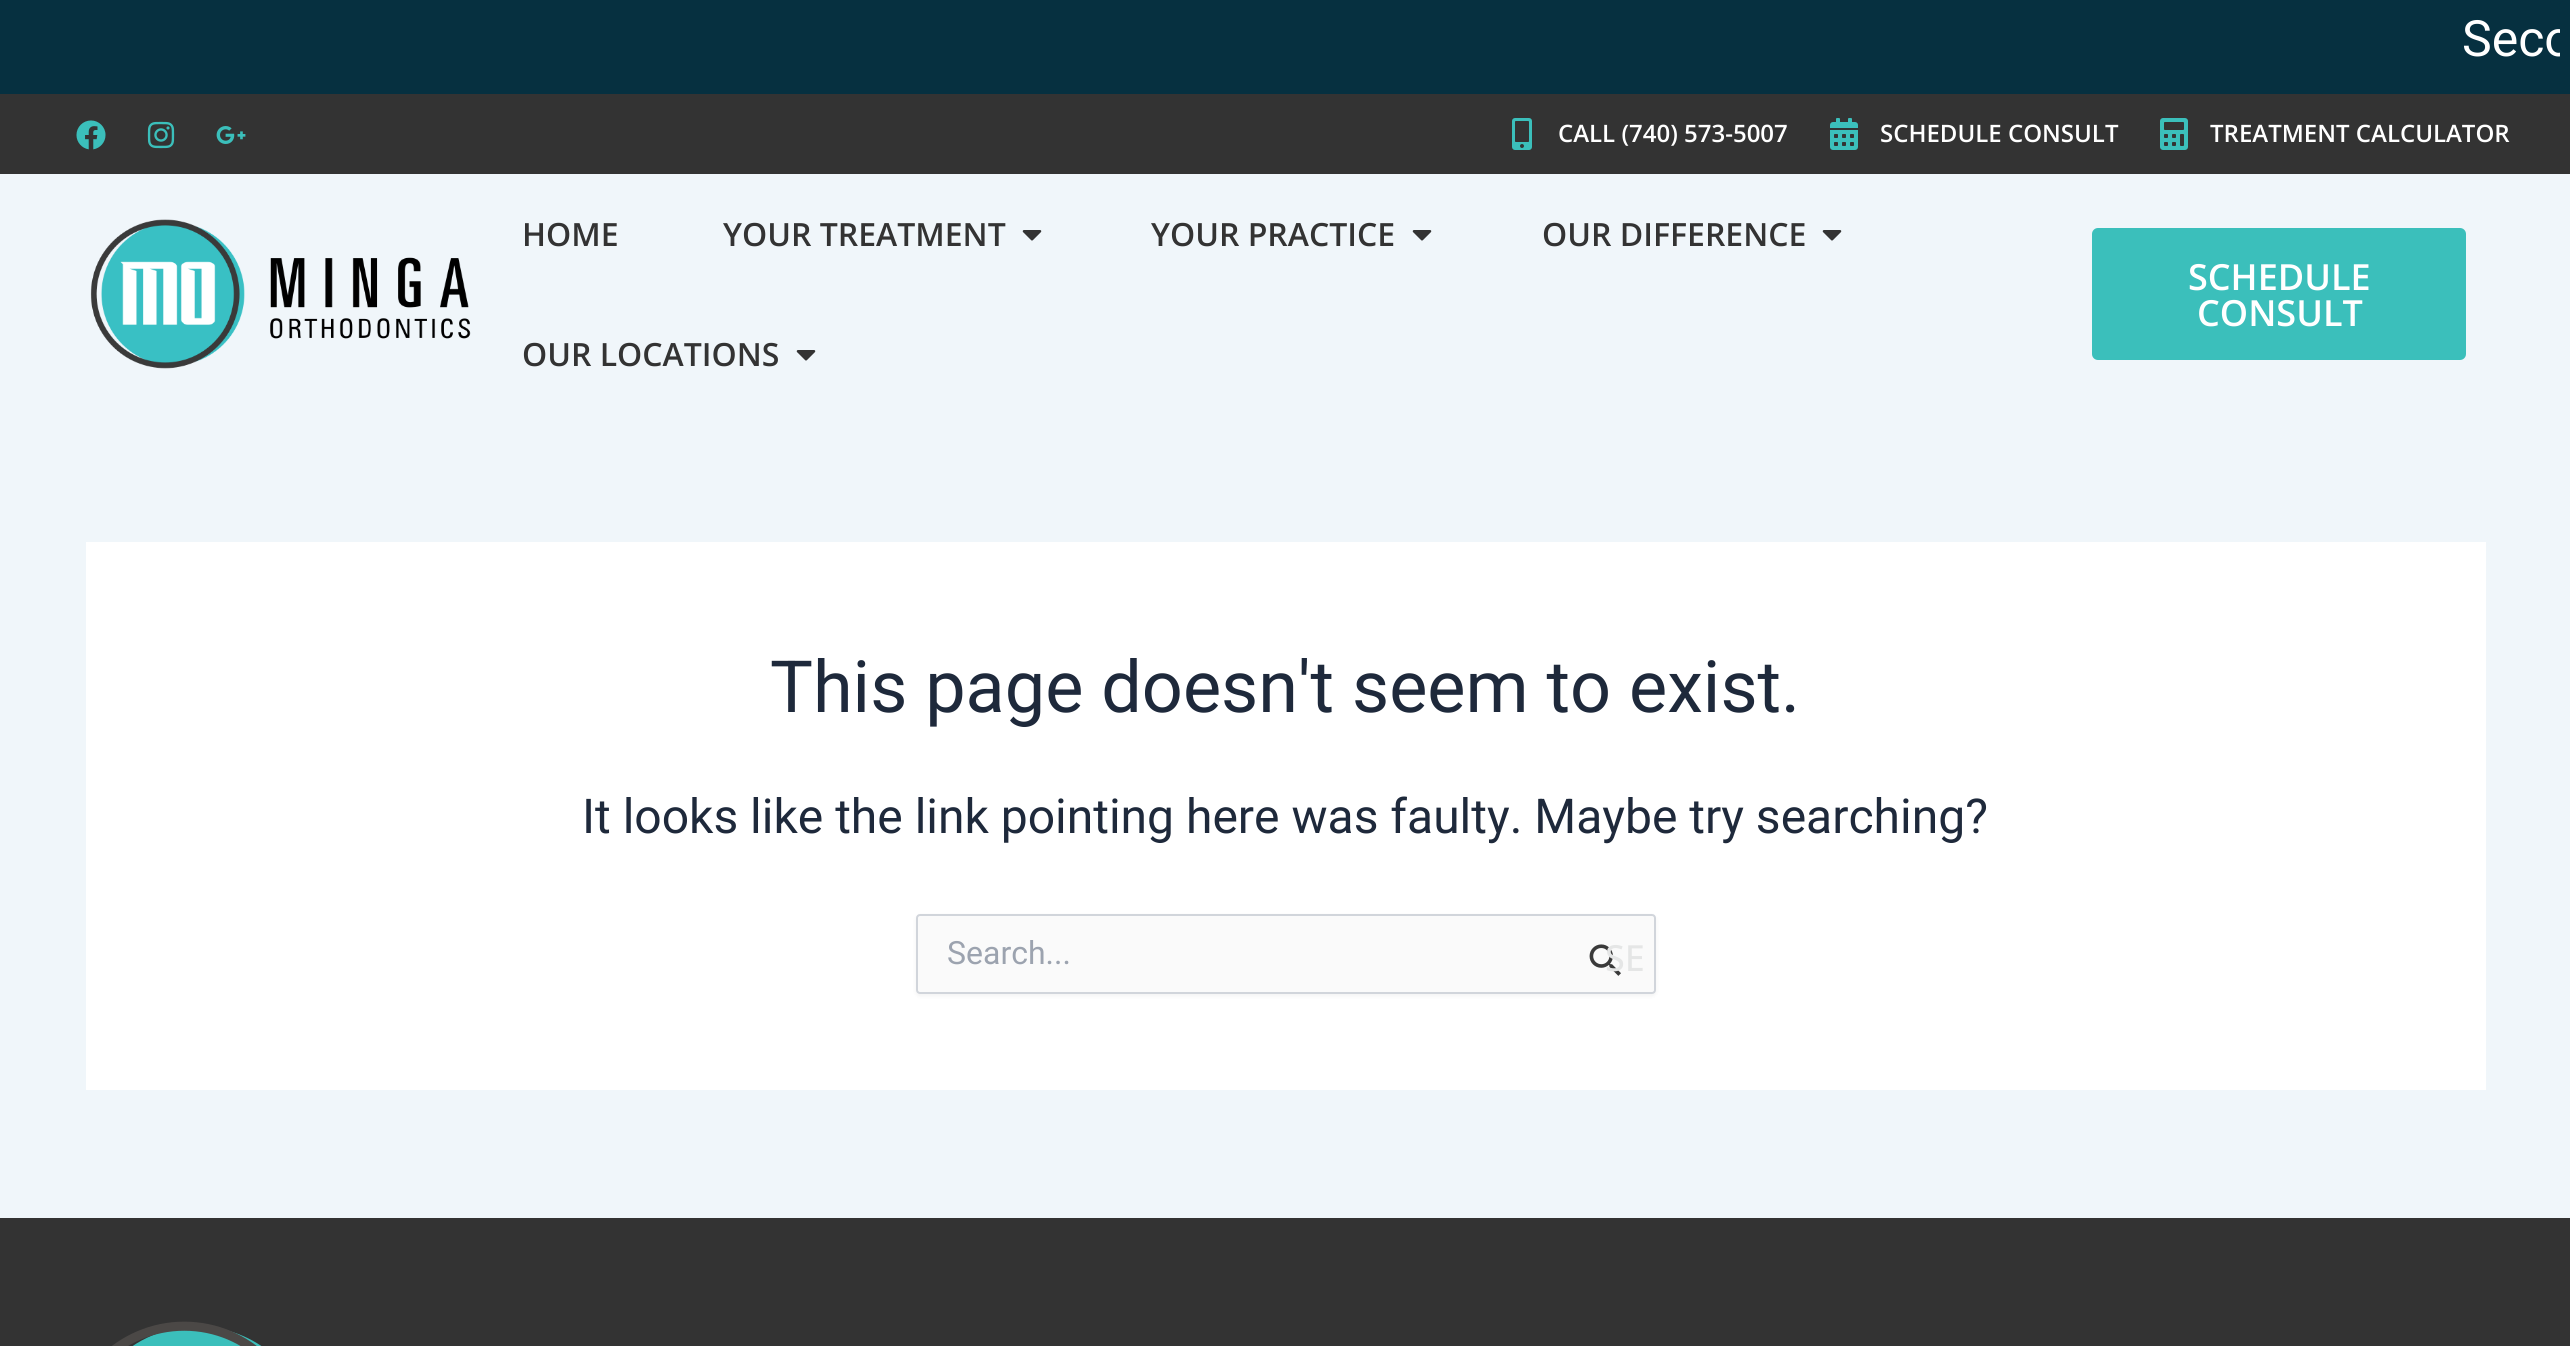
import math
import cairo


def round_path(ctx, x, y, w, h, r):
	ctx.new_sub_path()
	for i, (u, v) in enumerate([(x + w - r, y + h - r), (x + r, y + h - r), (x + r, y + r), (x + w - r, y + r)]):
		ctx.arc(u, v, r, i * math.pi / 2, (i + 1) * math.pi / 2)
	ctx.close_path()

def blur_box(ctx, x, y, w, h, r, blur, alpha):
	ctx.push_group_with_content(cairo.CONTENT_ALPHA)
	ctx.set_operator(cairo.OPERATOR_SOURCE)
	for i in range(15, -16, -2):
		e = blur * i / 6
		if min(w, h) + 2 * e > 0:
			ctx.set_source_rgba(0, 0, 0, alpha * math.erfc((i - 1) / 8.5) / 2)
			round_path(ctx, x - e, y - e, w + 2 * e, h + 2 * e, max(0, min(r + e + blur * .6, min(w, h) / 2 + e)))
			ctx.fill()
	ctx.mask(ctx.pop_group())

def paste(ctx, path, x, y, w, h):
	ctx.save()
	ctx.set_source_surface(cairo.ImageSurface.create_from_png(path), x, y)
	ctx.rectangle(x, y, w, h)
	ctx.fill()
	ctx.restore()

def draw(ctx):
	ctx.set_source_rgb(0.941, 0.961, 0.98)
	ctx.paint()
	ctx.set_source_rgb(0.027, 0.188, 0.251)
	ctx.rectangle(0, 0, 2570, 94)
	ctx.fill()
	ctx.save()
	ctx.rectangle(10, 4, 2550, 70)
	ctx.clip()
	ctx.select_font_face('Roboto')
	ctx.set_font_size(50)
	ctx.set_source_rgb(1, 1, 1)
	ctx.move_to(2462, 56)
	ctx.show_text('Seco')
	ctx.restore()
	ctx.set_source_rgb(0.2, 0.2, 0.2)
	ctx.rectangle(0, 94, 2570, 80)
	ctx.fill()
	paste(ctx, 'media/1.png', 76, 120, 30, 30)
	paste(ctx, 'media/2.png', 147, 121, 28, 28)
	paste(ctx, 'media/3.png', 216, 126, 30, 18)
	paste(ctx, 'media/4.png', 1512, 118, 20, 32)
	ctx.select_font_face('Open Sans SemiBold')
	ctx.set_font_size(24)
	ctx.set_source_rgb(1, 1, 1)
	ctx.move_to(1558, 142)
	ctx.show_text('CALL (740) 573-5007')
	paste(ctx, 'media/5.png', 1830, 118, 28, 32)
	ctx.move_to(1880, 142)
	ctx.show_text('SCHEDULE CONSULT')
	paste(ctx, 'media/6.png', 2160, 118, 28, 32)
	ctx.move_to(2210, 142)
	ctx.show_text('TREATMENT CALCULATOR')
	paste(ctx, 'media/7.png', 90, 219, 381, 150)
	ctx.set_font_size(32)
	ctx.set_source_rgb(0.2, 0.2, 0.2)
	ctx.move_to(522, 246)
	ctx.show_text('HOME')
	ctx.move_to(723, 246)
	ctx.show_text('YOUR TREATMENT')
	paste(ctx, 'media/8.png', 1022, 230, 20, 11)
	ctx.move_to(1151, 246)
	ctx.show_text('YOUR PRACTICE')
	paste(ctx, 'media/8.png', 1412, 230, 20, 11)
	ctx.move_to(1542, 246)
	ctx.show_text('OUR DIFFERENCE')
	paste(ctx, 'media/8.png', 1822, 230, 20, 11)
	ctx.move_to(522, 366)
	ctx.show_text('OUR LOCATIONS')
	paste(ctx, 'media/8.png', 796, 350, 20, 11)
	ctx.set_source_rgb(0.231, 0.749, 0.733)
	round_path(ctx, 2092, 228, 374, 132, 6)
	ctx.fill()
	ctx.set_font_size(36)
	ctx.set_source_rgb(1, 1, 1)
	ctx.move_to(2188, 290)
	ctx.show_text('SCHEDULE')
	ctx.move_to(2197, 326)
	ctx.show_text('CONSULT')
	ctx.rectangle(86, 542, 2400, 548)
	ctx.fill()
	ctx.select_font_face('Roboto')
	ctx.set_font_size(72)
	ctx.set_source_rgb(0.118, 0.161, 0.231)
	ctx.move_to(770, 712)
	ctx.show_text('This page doesn\'t seem to exist.')
	ctx.set_font_size(48)
	ctx.move_to(582, 833)
	ctx.show_text('It looks like the link pointing here was faulty. Maybe try searching?')
	ctx.set_source_rgb(0, 0, 0)
	blur_box(ctx, 916, 916, 740, 80, 4, 2, 0.05)
	ctx.set_source_rgb(0.98, 0.98, 0.98)
	round_path(ctx, 917, 915, 738, 78, 3)
	ctx.fill_preserve()
	ctx.set_source_rgb(0.82, 0.835, 0.859)
	ctx.stroke()
	ctx.set_font_size(32)
	ctx.set_source_rgb(0.612, 0.639, 0.686)
	ctx.move_to(947, 964)
	ctx.show_text('Search...')
	paste(ctx, 'media/9.png', 1589, 944, 32, 32)
	ctx.select_font_face('Open Sans Medium')
	ctx.set_font_size(36)
	ctx.set_source_rgb(0.898, 0.902, 0.902)
	ctx.move_to(1605, 971)
	ctx.show_text('SE')
	ctx.set_source_rgb(0.2, 0.2, 0.2)
	ctx.rectangle(0, 1218, 2570, 128)
	ctx.fill()
	paste(ctx, 'media/10.png', 112, 1321, 150, 25)


surface = cairo.ImageSurface(cairo.FORMAT_RGB24, 2570, 1346)
ctx = cairo.Context(surface)
options = cairo.FontOptions()
options.set_hint_metrics(cairo.HINT_METRICS_OFF)
options.set_hint_style(cairo.HINT_STYLE_NONE)
ctx.set_font_options(options)
ctx.set_miter_limit(4)
draw(ctx)
surface.write_to_png('image.png')
